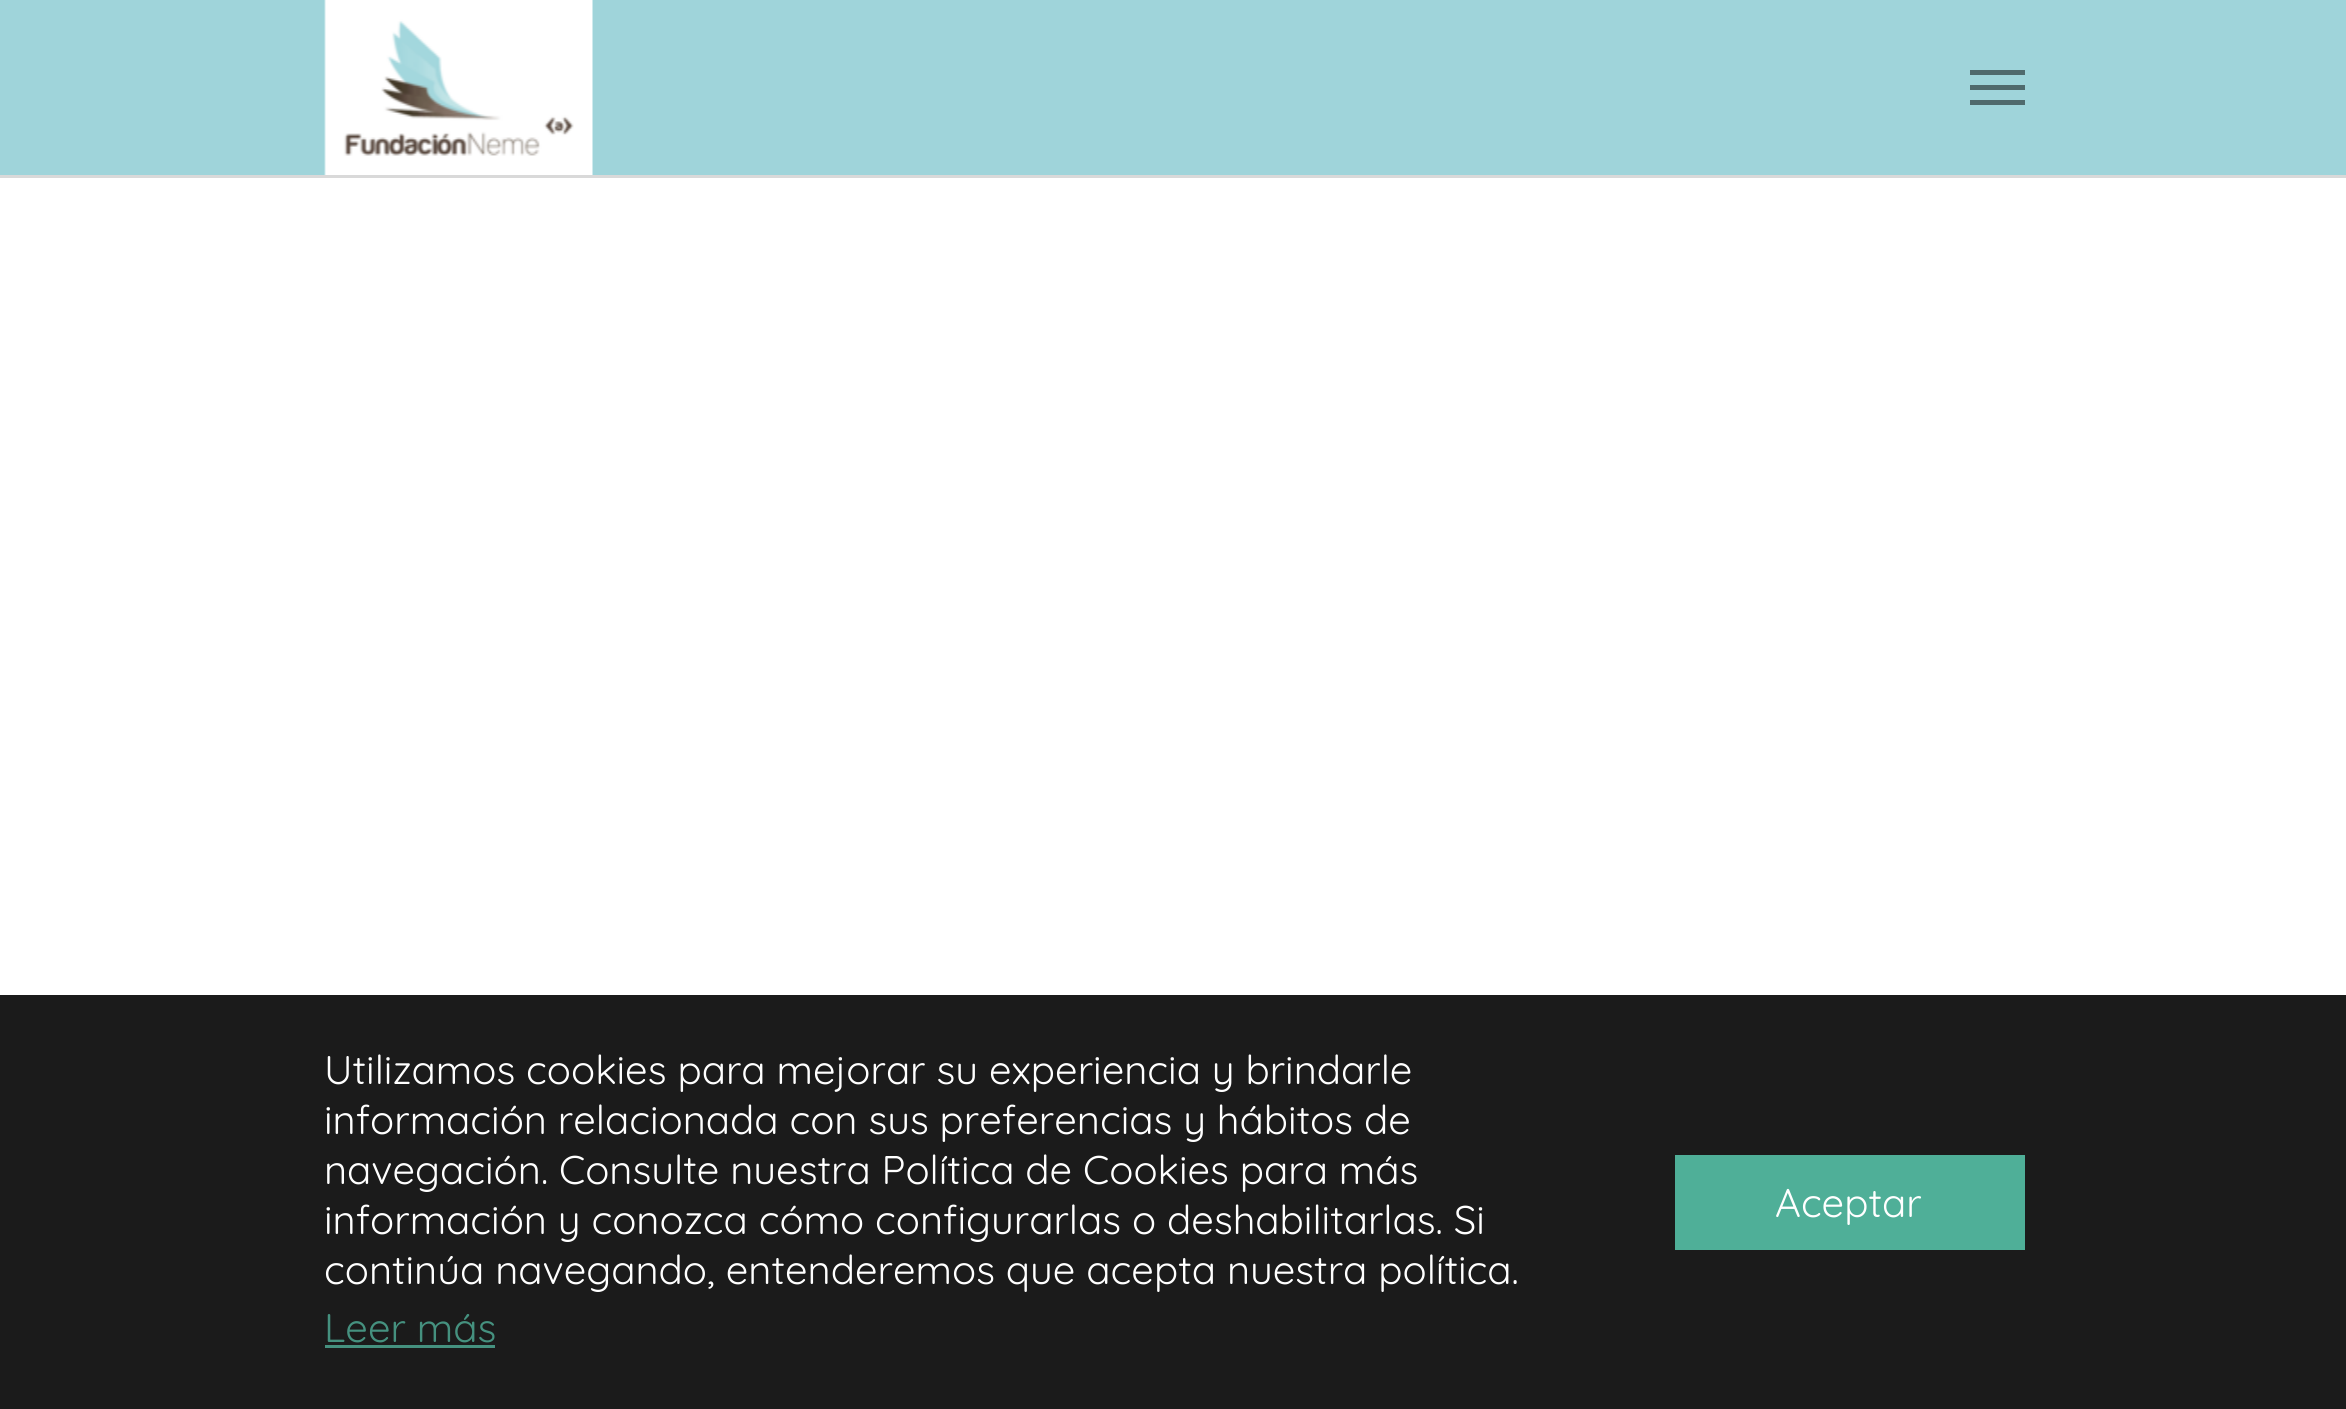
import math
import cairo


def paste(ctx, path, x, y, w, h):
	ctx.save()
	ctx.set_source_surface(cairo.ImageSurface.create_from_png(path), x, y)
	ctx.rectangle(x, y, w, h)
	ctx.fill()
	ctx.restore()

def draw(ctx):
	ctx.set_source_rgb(1, 1, 1)
	ctx.paint()
	ctx.set_source_rgb(0.851, 0.851, 0.851)
	ctx.new_path()
	ctx.move_to(0, 175)
	ctx.line_to(0, 178)
	ctx.line_to(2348, 178)
	ctx.line_to(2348, 3)
	ctx.line_to(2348, 175)
	ctx.close_path()
	ctx.fill()
	ctx.set_source_rgb(0.624, 0.831, 0.855)
	ctx.rectangle(0, 0, 2346, 175)
	ctx.fill()
	paste(ctx, 'media/1.png', 324, 0, 269, 175)
	ctx.set_source_rgb(0.314, 0.416, 0.427)
	ctx.rectangle(1970, 85, 55, 5)
	ctx.rectangle(1970, 70, 55, 5)
	ctx.rectangle(1970, 100, 55, 5)
	ctx.fill()
	ctx.set_source_rgb(0.106, 0.106, 0.106)
	ctx.rectangle(0, 995, 2346, 414)
	ctx.fill()
	ctx.select_font_face('Quicksand')
	ctx.set_font_size(40)
	ctx.set_source_rgb(1, 1, 1)
	for x, y, s in [
		(324, 1084, 'Utilizamos cookies para mejorar su experiencia y brindarle'),
		(324, 1134, 'información relacionada con sus preferencias y hábitos de'),
		(324, 1184, 'navegación. Consulte nuestra Política de Cookies para más'),
		(324, 1234, 'información y conozca cómo configurarlas o deshabilitarlas. Si'),
		(324, 1284, 'continúa navegando, entenderemos que acepta nuestra política.'),
	]:
		ctx.move_to(x, y)
		ctx.show_text(s)
	ctx.set_source_rgb(0.271, 0.569, 0.498)
	ctx.move_to(324, 1342)
	ctx.show_text('Leer más')
	ctx.rectangle(325, 1345, 170, 3)
	ctx.fill()
	ctx.set_source_rgb(0.31, 0.686, 0.596)
	ctx.rectangle(1675, 1155, 350, 95)
	ctx.fill()
	ctx.set_source_rgb(1, 1, 1)
	ctx.move_to(1775, 1217)
	ctx.show_text('Aceptar')


surface = cairo.ImageSurface(cairo.FORMAT_RGB24, 2346, 1409)
ctx = cairo.Context(surface)
options = cairo.FontOptions()
options.set_hint_metrics(cairo.HINT_METRICS_OFF)
options.set_hint_style(cairo.HINT_STYLE_NONE)
ctx.set_font_options(options)
ctx.set_miter_limit(4)
draw(ctx)
surface.write_to_png('image.png')
